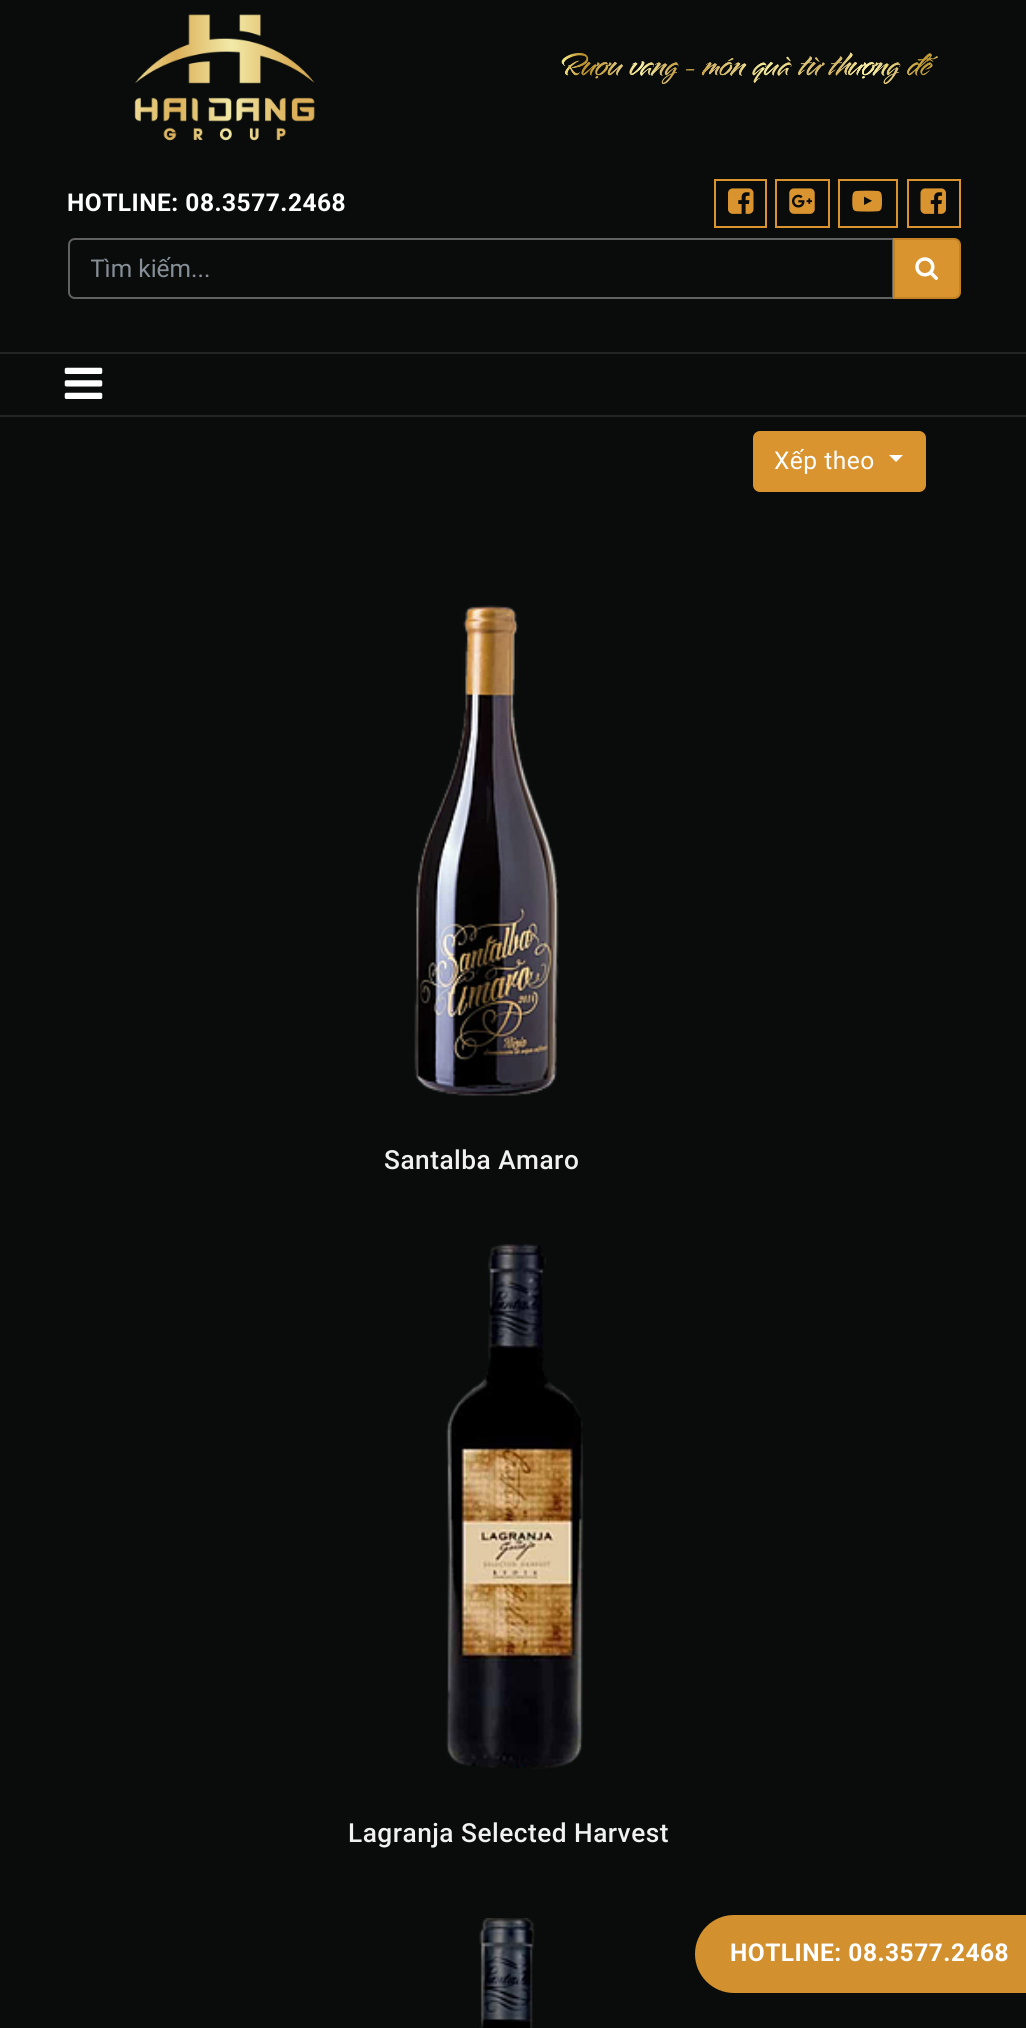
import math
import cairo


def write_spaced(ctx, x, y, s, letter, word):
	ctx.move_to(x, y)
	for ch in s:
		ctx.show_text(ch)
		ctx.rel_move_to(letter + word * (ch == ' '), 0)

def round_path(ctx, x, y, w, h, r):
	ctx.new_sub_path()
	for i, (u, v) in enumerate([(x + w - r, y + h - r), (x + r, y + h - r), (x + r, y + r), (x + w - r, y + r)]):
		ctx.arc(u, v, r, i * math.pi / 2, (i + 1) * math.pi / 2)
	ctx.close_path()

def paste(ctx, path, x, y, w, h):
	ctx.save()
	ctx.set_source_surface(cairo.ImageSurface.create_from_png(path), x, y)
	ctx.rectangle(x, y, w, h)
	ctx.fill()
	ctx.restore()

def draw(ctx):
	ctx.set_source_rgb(0.039, 0.047, 0.043)
	ctx.paint()
	paste(ctx, 'media/1.png', 134, 14, 181, 127)
	paste(ctx, 'media/2.png', 561, 52, 377, 32)
	ctx.select_font_face('Roboto', cairo.FONT_SLANT_NORMAL, cairo.FONT_WEIGHT_BOLD)
	ctx.set_font_size(24.5)
	ctx.set_source_rgb(1, 1, 1)
	write_spaced(ctx, 67, 211, 'HOTLINE: 08.3577.2468', 0.5, 0)
	ctx.rectangle(715, 180, 51, 47)
	ctx.set_source_rgb(0.851, 0.576, 0.184)
	ctx.stroke()
	paste(ctx, 'media/3.png', 728, 188, 26, 26)
	ctx.rectangle(776, 180, 53, 47)
	ctx.stroke()
	paste(ctx, 'media/4.png', 789, 188, 26, 26)
	ctx.rectangle(839, 180, 58, 47)
	ctx.stroke()
	paste(ctx, 'media/5.png', 852, 190, 30, 22)
	ctx.rectangle(908, 180, 52, 47)
	ctx.stroke()
	paste(ctx, 'media/6.png', 920, 188, 26, 26)
	ctx.new_path()
	ctx.move_to(75, 239)
	ctx.line_to(893, 239)
	ctx.line_to(893, 298)
	ctx.line_to(75, 298)
	ctx.curve_to(71.5, 298, 69, 295.5, 69, 292)
	ctx.line_to(69, 245)
	ctx.curve_to(69, 241.5, 71.5, 239, 75, 239)
	ctx.close_path()
	ctx.set_source_rgb(0.376, 0.38, 0.376)
	ctx.stroke()
	ctx.save()
	ctx.rectangle(91, 254, 761, 28)
	ctx.clip()
	ctx.select_font_face('Roboto')
	ctx.set_source_rgb(0.525, 0.557, 0.588)
	ctx.move_to(90, 277)
	ctx.show_text('Tìm kiếm...')
	ctx.restore()
	ctx.set_source_rgb(0.851, 0.576, 0.184)
	ctx.new_path()
	ctx.move_to(894, 239)
	ctx.line_to(954, 239)
	ctx.curve_to(957.5, 239, 960, 241.5, 960, 245)
	ctx.line_to(960, 292)
	ctx.curve_to(960, 295.5, 957.5, 298, 954, 298)
	ctx.line_to(894, 298)
	ctx.close_path()
	ctx.fill_preserve()
	ctx.set_source_rgb(0.765, 0.51, 0.141)
	ctx.stroke()
	paste(ctx, 'media/7.png', 915, 257, 23, 23)
	ctx.set_source_rgb(0.137, 0.141, 0.137)
	ctx.rectangle(0, 352, 1026, 2)
	ctx.fill()
	ctx.rectangle(0, 415, 1026, 2)
	ctx.fill()
	paste(ctx, 'media/8.png', 64, 367, 39, 32)
	ctx.set_source_rgb(0.851, 0.576, 0.184)
	round_path(ctx, 754, 432, 171, 59, 6)
	ctx.fill_preserve()
	ctx.stroke()
	ctx.select_font_face('Roboto')
	ctx.set_source_rgb(1, 1, 1)
	write_spaced(ctx, 774, 469, 'Xếp theo', 0.5, 0)
	ctx.new_path()
	ctx.move_to(889, 455)
	ctx.line_to(903, 455)
	ctx.line_to(896, 462)
	ctx.close_path()
	ctx.fill()
	paste(ctx, 'media/9.png', 414, 605, 145, 491)
	ctx.select_font_face('Roboto Medium')
	ctx.set_font_size(26.25)
	ctx.set_source_rgb(0.945, 0.945, 0.945)
	write_spaced(ctx, 384, 1169, 'Santalba Amaro', 0.5, 0)
	paste(ctx, 'media/10.png', 446, 1244, 138, 525)
	write_spaced(ctx, 348, 1842, 'Lagranja Selected Harvest', 0.5, 0)
	paste(ctx, 'media/11.png', 479, 1918, 56, 110)
	ctx.set_source_rgb(0.824, 0.565, 0.18)
	round_path(ctx, 695, 1915, 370, 78, 39)
	ctx.fill()
	ctx.select_font_face('Roboto', cairo.FONT_SLANT_NORMAL, cairo.FONT_WEIGHT_BOLD)
	ctx.set_font_size(24.5)
	ctx.set_source_rgb(1, 1, 1)
	write_spaced(ctx, 730, 1961, 'HOTLINE: 08.3577.2468', 0.5, 0)


surface = cairo.ImageSurface(cairo.FORMAT_RGB24, 1026, 2028)
ctx = cairo.Context(surface)
options = cairo.FontOptions()
options.set_hint_metrics(cairo.HINT_METRICS_OFF)
options.set_hint_style(cairo.HINT_STYLE_NONE)
ctx.set_font_options(options)
ctx.set_miter_limit(4)
draw(ctx)
surface.write_to_png('image.png')
